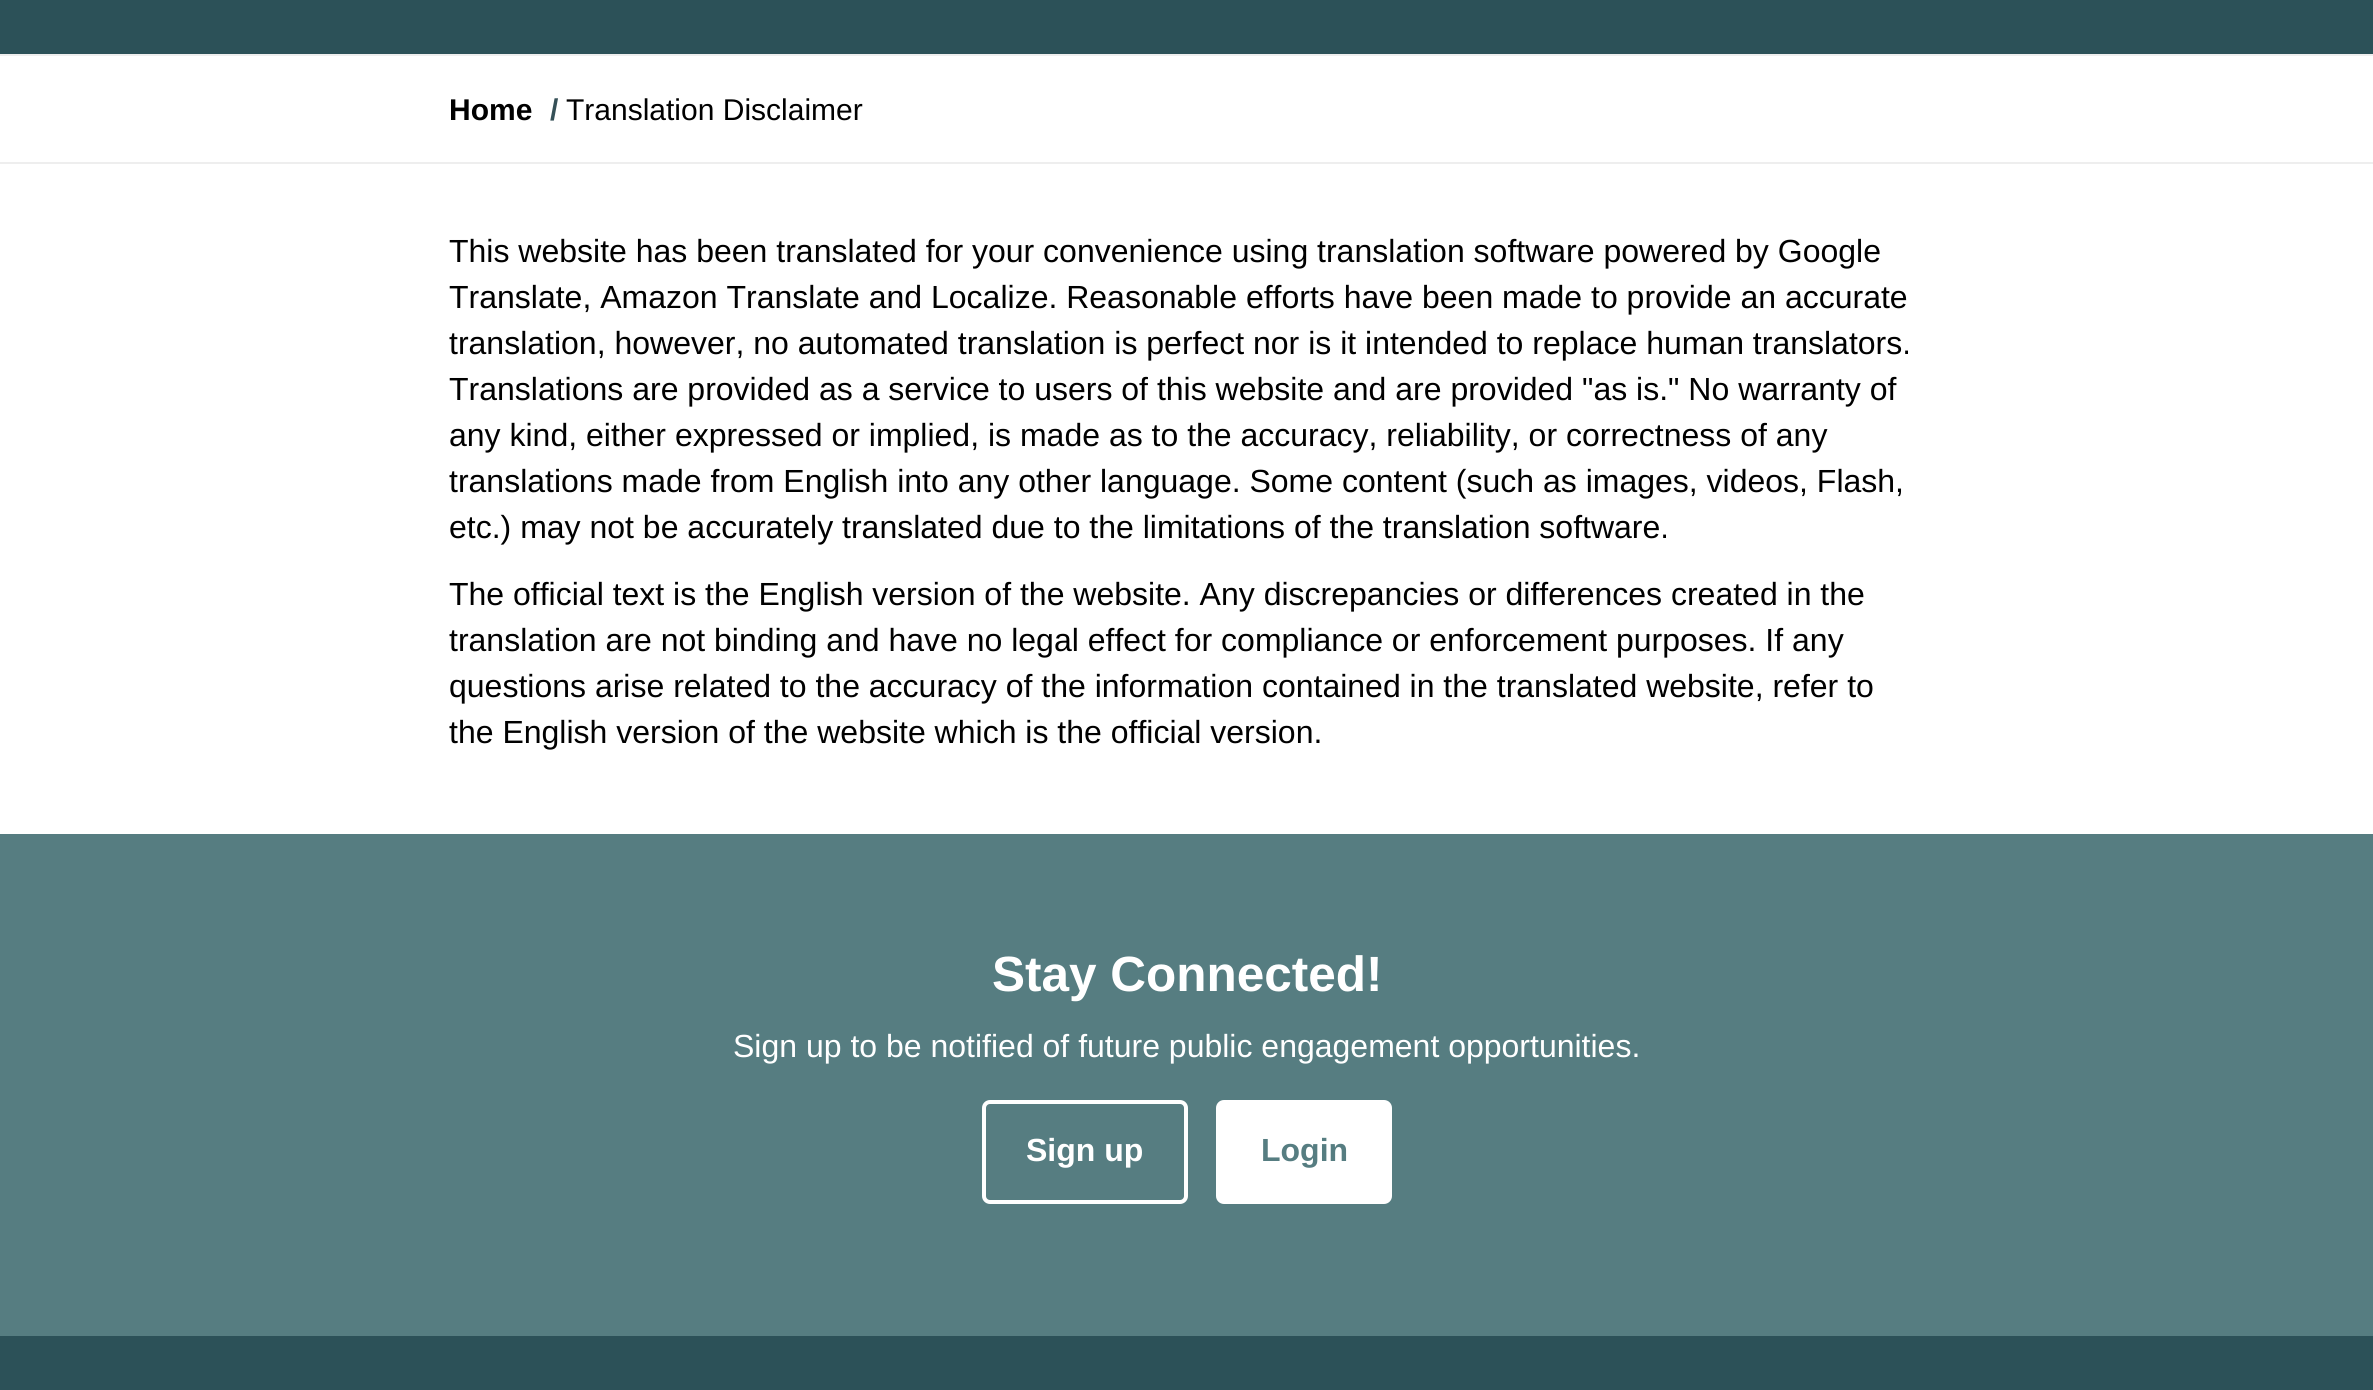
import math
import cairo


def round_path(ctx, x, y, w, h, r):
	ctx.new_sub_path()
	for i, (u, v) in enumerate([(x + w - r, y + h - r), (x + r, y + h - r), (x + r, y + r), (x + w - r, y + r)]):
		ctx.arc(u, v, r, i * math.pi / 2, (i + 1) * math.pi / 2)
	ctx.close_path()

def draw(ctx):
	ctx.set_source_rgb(1, 1, 1)
	ctx.paint()
	ctx.set_source_rgb(0.933, 0.933, 0.933)
	ctx.rectangle(0, 162, 2373, 2)
	ctx.fill()
	ctx.set_source_rgb(0.173, 0.318, 0.345)
	ctx.rectangle(0, 0, 2373, 54)
	ctx.fill()
	ctx.set_source_rgb(0.933, 0.933, 0.933)
	ctx.rectangle(0, 54, 2373, 2)
	ctx.fill()
	ctx.select_font_face('Liberation Sans', cairo.FONT_SLANT_NORMAL, cairo.FONT_WEIGHT_BOLD)
	ctx.set_font_size(30)
	ctx.set_source_rgb(0, 0, 0)
	ctx.move_to(449, 120)
	ctx.show_text('Home')
	ctx.set_source_rgb(0.208, 0.314, 0.341)
	ctx.move_to(550, 120)
	ctx.show_text('/')
	ctx.select_font_face('Liberation Sans')
	ctx.set_source_rgb(0, 0, 0)
	ctx.move_to(566, 120)
	ctx.show_text('Translation Disclaimer')
	ctx.set_font_size(32)
	for x, y, s in [
		(449, 262, 'This website has been translated for your convenience using translation software powered by Google'),
		(449, 308, 'Translate, Amazon Translate and Localize. Reasonable efforts have been made to provide an accurate'),
		(449, 354, 'translation, however, no automated translation is perfect nor is it intended to replace human translators.'),
		(449, 400, 'Translations are provided as a service to users of this website and are provided "as is." No warranty of'),
		(449, 446, 'any kind, either expressed or implied, is made as to the accuracy, reliability, or correctness of any'),
		(449, 492, 'translations made from English into any other language. Some content (such as images, videos, Flash,'),
		(449, 538, 'etc.) may not be accurately translated due to the limitations of the translation software.'),
		(449, 605, 'The official text is the English version of the website. Any discrepancies or differences created in the'),
		(449, 651, 'translation are not binding and have no legal effect for compliance or enforcement purposes. If any'),
		(449, 697, 'questions arise related to the accuracy of the information contained in the translated website, refer to'),
		(449, 743, 'the English version of the website which is the official version.'),
	]:
		ctx.move_to(x, y)
		ctx.show_text(s)
	ctx.set_source_rgb(0.337, 0.49, 0.506)
	ctx.rectangle(0, 834, 2373, 502)
	ctx.fill()
	ctx.select_font_face('Liberation Sans', cairo.FONT_SLANT_NORMAL, cairo.FONT_WEIGHT_BOLD)
	ctx.set_font_size(49.5)
	ctx.set_source_rgb(1, 1, 1)
	ctx.move_to(992, 991)
	ctx.show_text('Stay Connected!')
	ctx.select_font_face('Liberation Sans')
	ctx.set_font_size(32)
	ctx.move_to(733, 1057)
	ctx.show_text('Sign up to be notified of future public engagement opportunities.')
	round_path(ctx, 984, 1102, 202, 100, 6)
	ctx.set_line_width(4)
	ctx.stroke()
	ctx.select_font_face('Liberation Sans', cairo.FONT_SLANT_NORMAL, cairo.FONT_WEIGHT_BOLD)
	ctx.move_to(1026, 1161)
	ctx.show_text('Sign up')
	round_path(ctx, 1218, 1102, 172, 100, 6)
	ctx.fill_preserve()
	ctx.stroke()
	ctx.set_source_rgb(0.337, 0.49, 0.506)
	ctx.move_to(1261, 1161)
	ctx.show_text('Login')
	ctx.set_source_rgb(0.173, 0.318, 0.345)
	ctx.rectangle(0, 1336, 2373, 54)
	ctx.fill()


surface = cairo.ImageSurface(cairo.FORMAT_RGB24, 2373, 1390)
ctx = cairo.Context(surface)
options = cairo.FontOptions()
options.set_hint_metrics(cairo.HINT_METRICS_OFF)
options.set_hint_style(cairo.HINT_STYLE_NONE)
ctx.set_font_options(options)
ctx.set_miter_limit(4)
draw(ctx)
surface.write_to_png('image.png')
